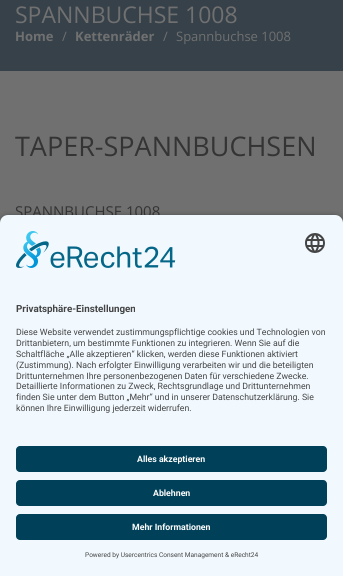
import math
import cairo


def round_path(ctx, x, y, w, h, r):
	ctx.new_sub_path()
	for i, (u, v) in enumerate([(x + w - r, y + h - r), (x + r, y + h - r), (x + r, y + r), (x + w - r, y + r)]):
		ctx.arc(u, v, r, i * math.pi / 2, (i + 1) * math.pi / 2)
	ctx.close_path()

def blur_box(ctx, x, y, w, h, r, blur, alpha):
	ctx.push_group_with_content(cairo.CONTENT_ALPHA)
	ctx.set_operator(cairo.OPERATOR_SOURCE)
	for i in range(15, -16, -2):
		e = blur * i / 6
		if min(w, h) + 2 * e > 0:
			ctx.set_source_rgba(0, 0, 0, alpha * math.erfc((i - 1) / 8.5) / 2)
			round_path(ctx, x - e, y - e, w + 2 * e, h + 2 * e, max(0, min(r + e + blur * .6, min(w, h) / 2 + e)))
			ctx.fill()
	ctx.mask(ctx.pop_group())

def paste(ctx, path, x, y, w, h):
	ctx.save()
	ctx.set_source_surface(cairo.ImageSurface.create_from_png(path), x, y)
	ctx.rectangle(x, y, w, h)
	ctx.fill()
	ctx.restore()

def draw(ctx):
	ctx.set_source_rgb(0.439, 0.439, 0.439)
	ctx.paint()
	ctx.set_source_rgb(0.212, 0.255, 0.29)
	ctx.rectangle(0, 0, 343, 71)
	ctx.fill()
	ctx.select_font_face('Open Sans')
	ctx.set_font_size(23)
	ctx.set_source_rgb(0.439, 0.439, 0.439)
	ctx.move_to(15, 23)
	ctx.show_text('SPANNBUCHSE 1008')
	ctx.select_font_face('Open Sans', cairo.FONT_SLANT_NORMAL, cairo.FONT_WEIGHT_BOLD)
	ctx.set_font_size(13)
	ctx.move_to(15, 41)
	ctx.show_text('Home')
	ctx.select_font_face('Open Sans')
	ctx.move_to(62, 41)
	ctx.show_text('/')
	ctx.select_font_face('Open Sans', cairo.FONT_SLANT_NORMAL, cairo.FONT_WEIGHT_BOLD)
	ctx.move_to(75, 41)
	ctx.show_text('Kettenräder')
	ctx.select_font_face('Open Sans')
	ctx.move_to(163, 41)
	ctx.show_text('/')
	ctx.move_to(176, 41)
	ctx.show_text('Spannbuchse 1008')
	ctx.set_font_size(27)
	ctx.set_source_rgb(0.204, 0.204, 0.204)
	ctx.move_to(15, 156)
	ctx.show_text('TAPER-SPANNBUCHSEN')
	ctx.set_font_size(15)
	ctx.move_to(15, 217)
	ctx.show_text('SPANNBUCHSE 1008')
	ctx.set_source_rgb(0, 0, 0)
	blur_box(ctx, 0, 218, 343, 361, 8, 3.5, 0.8)
	ctx.set_source_rgb(0.945, 0.973, 1)
	ctx.new_path()
	ctx.move_to(8, 215)
	ctx.line_to(335, 215)
	ctx.curve_to(339.5, 215, 343, 218.5, 343, 223)
	ctx.line_to(343, 434)
	ctx.line_to(0, 434)
	ctx.line_to(0, 223)
	ctx.curve_to(0, 218.5, 3.5, 215, 8, 215)
	ctx.close_path()
	ctx.fill()
	paste(ctx, 'media/1.png', 16, 231, 160, 37)
	paste(ctx, 'media/2.png', 305, 233, 20, 20)
	ctx.select_font_face('Roboto', cairo.FONT_SLANT_NORMAL, cairo.FONT_WEIGHT_BOLD)
	ctx.set_font_size(9.8)
	ctx.set_source_rgb(0.267, 0.267, 0.267)
	ctx.move_to(16, 312)
	ctx.show_text('Privatsphäre-Einstellungen')
	ctx.select_font_face('Roboto')
	ctx.set_font_size(8.75)
	for x, y, s in [
		(16, 335, 'Diese Website verwendet zustimmungspflichtige cookies und Technologien von'),
		(16, 346, 'Drittanbietern, um bestimmte Funktionen zu integrieren. Wenn Sie auf die'),
		(16, 357, 'Schaltfläche „Alle akzeptieren“ klicken, werden diese Funktionen aktiviert'),
		(16, 368, '(Zustimmung). Nach erfolgter Einwilligung verarbeiten wir und die beteiligten'),
		(16, 379, 'Drittunternehmen Ihre personenbezogenen Daten für verschiedene Zwecke.'),
		(16, 389, 'Detaillierte Informationen zu Zweck, Rechtsgrundlage und Drittunternehmen'),
		(16, 400, 'finden Sie unter dem Button „Mehr“ und in unserer Datenschutzerklärung. Sie'),
		(16, 411, 'können Ihre Einwilligung jederzeit widerrufen.'),
	]:
		ctx.move_to(x, y)
		ctx.show_text(s)
	ctx.set_source_rgb(0.945, 0.973, 1)
	ctx.rectangle(0, 434, 343, 142)
	ctx.fill()
	ctx.set_source_rgb(0, 0.251, 0.349)
	round_path(ctx, 16, 446, 311, 26, 4)
	ctx.fill()
	ctx.select_font_face('Roboto', cairo.FONT_SLANT_NORMAL, cairo.FONT_WEIGHT_BOLD)
	ctx.set_source_rgb(1, 1, 1)
	ctx.move_to(137, 462)
	ctx.show_text('Alles akzeptieren')
	ctx.set_source_rgb(0, 0.251, 0.349)
	round_path(ctx, 16, 480, 311, 26, 4)
	ctx.fill()
	ctx.set_source_rgb(1, 1, 1)
	ctx.move_to(153, 496)
	ctx.show_text('Ablehnen')
	ctx.set_source_rgb(0, 0.251, 0.349)
	round_path(ctx, 16, 514, 311, 26, 4)
	ctx.fill()
	ctx.set_source_rgb(1, 1, 1)
	ctx.move_to(132, 530)
	ctx.show_text('Mehr Informationen')
	ctx.select_font_face('Roboto')
	ctx.set_font_size(6.55)
	ctx.set_source_rgb(0.267, 0.267, 0.267)
	ctx.move_to(85, 557)
	ctx.show_text('Powered by Usercentrics Consent Management & eRecht24')


surface = cairo.ImageSurface(cairo.FORMAT_RGB24, 343, 576)
ctx = cairo.Context(surface)
options = cairo.FontOptions()
options.set_hint_metrics(cairo.HINT_METRICS_OFF)
options.set_hint_style(cairo.HINT_STYLE_NONE)
ctx.set_font_options(options)
ctx.set_miter_limit(4)
draw(ctx)
surface.write_to_png('image.png')
